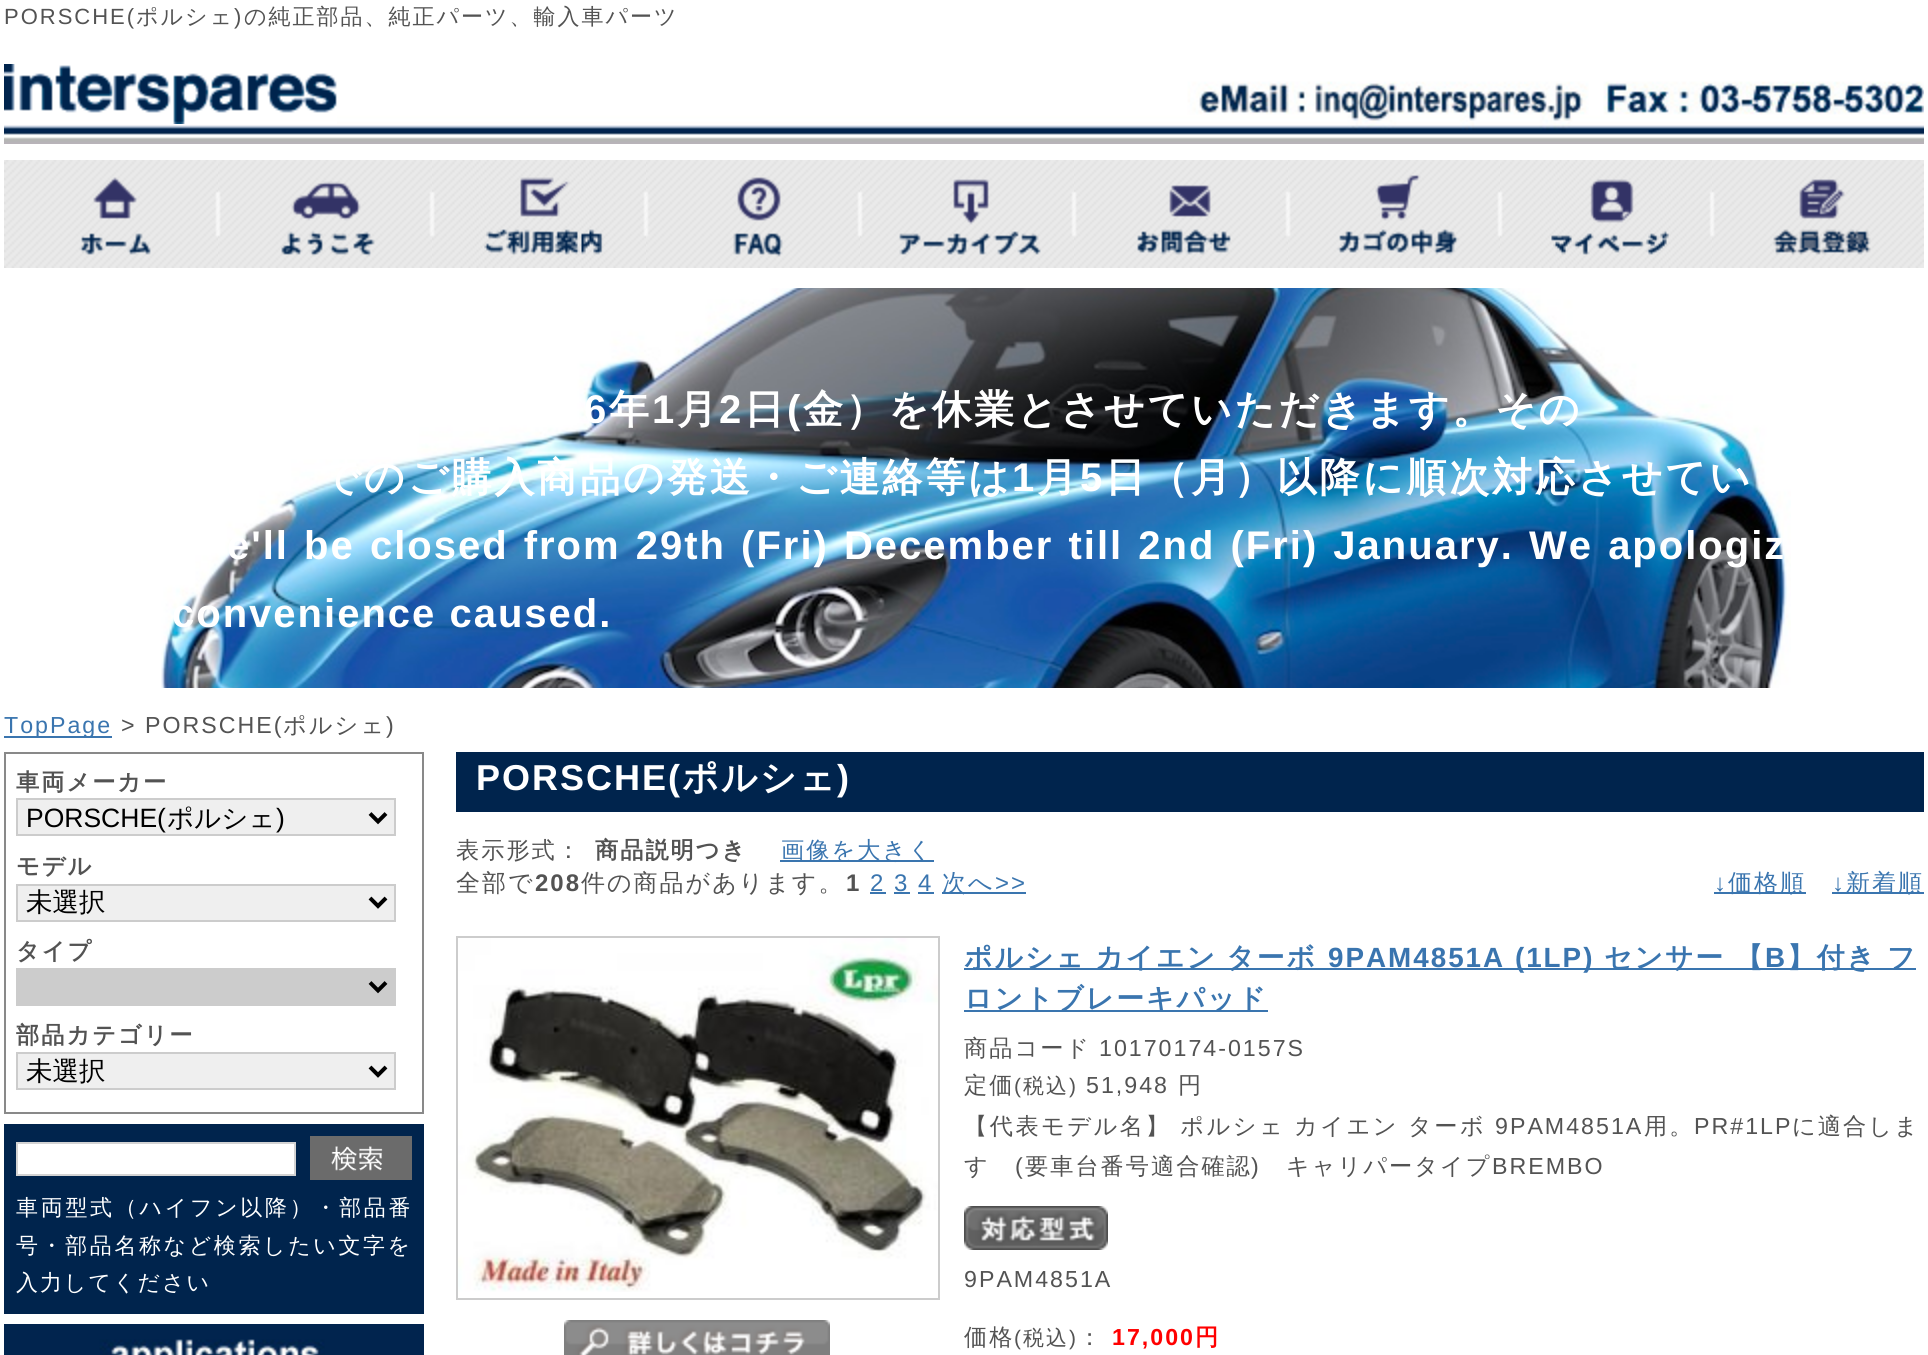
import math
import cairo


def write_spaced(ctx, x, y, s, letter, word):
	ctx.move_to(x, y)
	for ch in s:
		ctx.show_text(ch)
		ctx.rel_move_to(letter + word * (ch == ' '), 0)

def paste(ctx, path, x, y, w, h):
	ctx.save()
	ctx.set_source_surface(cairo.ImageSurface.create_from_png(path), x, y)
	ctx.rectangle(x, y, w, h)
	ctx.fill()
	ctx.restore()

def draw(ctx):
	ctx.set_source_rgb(1, 1, 1)
	ctx.paint()
	ctx.select_font_face('Liberation Sans')
	ctx.set_font_size(22)
	ctx.set_source_rgb(0.325, 0.325, 0.325)
	write_spaced(ctx, 4, 24, 'PORSCHE(', 2, 0)
	ctx.select_font_face('WenQuanYi Zen Hei Medium')
	write_spaced(ctx, 136, 24, 'ポルシェ', 2, 0)
	ctx.select_font_face('Liberation Sans')
	write_spaced(ctx, 234, 24, ')', 2, 0)
	ctx.select_font_face('WenQuanYi Zen Hei Medium')
	write_spaced(ctx, 244, 24, 'の純正部品、純正パーツ、輸入車パーツ', 2, 0)
	paste(ctx, 'media/1.png', 4, 81, 1920, 63)
	paste(ctx, 'media/2.png', 4, 64, 333, 60)
	paste(ctx, 'media/3.png', 4, 160, 214, 108)
	paste(ctx, 'media/4.png', 218, 160, 214, 108)
	paste(ctx, 'media/5.png', 432, 160, 214, 108)
	paste(ctx, 'media/6.png', 646, 160, 214, 108)
	paste(ctx, 'media/7.png', 860, 160, 214, 108)
	paste(ctx, 'media/8.png', 1074, 160, 214, 108)
	paste(ctx, 'media/9.png', 1288, 160, 212, 108)
	paste(ctx, 'media/10.png', 1500, 160, 212, 108)
	paste(ctx, 'media/11.png', 1712, 160, 212, 108)
	paste(ctx, 'media/12.png', 161, 288, 1630, 400)
	ctx.select_font_face('Liberation Sans', cairo.FONT_SLANT_NORMAL, cairo.FONT_WEIGHT_BOLD)
	ctx.set_font_size(40)
	ctx.set_source_rgb(1, 1, 1)
	write_spaced(ctx, 584, 423, '6', 2.6, 0)
	ctx.select_font_face('WenQuanYi Zen Hei', cairo.FONT_SLANT_NORMAL, cairo.FONT_WEIGHT_BOLD)
	write_spaced(ctx, 609, 423, '年', 2.6, 0)
	ctx.select_font_face('Liberation Sans', cairo.FONT_SLANT_NORMAL, cairo.FONT_WEIGHT_BOLD)
	write_spaced(ctx, 652, 423, '1', 2.6, 0)
	ctx.select_font_face('WenQuanYi Zen Hei', cairo.FONT_SLANT_NORMAL, cairo.FONT_WEIGHT_BOLD)
	write_spaced(ctx, 677, 423, '月', 2.6, 0)
	ctx.select_font_face('Liberation Sans', cairo.FONT_SLANT_NORMAL, cairo.FONT_WEIGHT_BOLD)
	write_spaced(ctx, 719, 423, '2', 2.6, 0)
	ctx.select_font_face('WenQuanYi Zen Hei', cairo.FONT_SLANT_NORMAL, cairo.FONT_WEIGHT_BOLD)
	write_spaced(ctx, 744, 423, '日', 2.6, 0)
	ctx.select_font_face('Liberation Sans', cairo.FONT_SLANT_NORMAL, cairo.FONT_WEIGHT_BOLD)
	write_spaced(ctx, 787, 423, '(', 2.6, 0)
	ctx.select_font_face('WenQuanYi Zen Hei', cairo.FONT_SLANT_NORMAL, cairo.FONT_WEIGHT_BOLD)
	write_spaced(ctx, 803, 423, '金）を休業とさせていただきます。その', 2.6, 0)
	write_spaced(ctx, 320, 491, 'でのご購入商品の発送・ご連絡等は', 2.9, -1)
	ctx.select_font_face('Liberation Sans', cairo.FONT_SLANT_NORMAL, cairo.FONT_WEIGHT_BOLD)
	write_spaced(ctx, 1012, 491, '1', 2.9, 0)
	ctx.select_font_face('WenQuanYi Zen Hei', cairo.FONT_SLANT_NORMAL, cairo.FONT_WEIGHT_BOLD)
	write_spaced(ctx, 1037, 491, '月', 2.9, 0)
	ctx.select_font_face('Liberation Sans', cairo.FONT_SLANT_NORMAL, cairo.FONT_WEIGHT_BOLD)
	write_spaced(ctx, 1080, 491, '5', 2.9, 0)
	ctx.select_font_face('WenQuanYi Zen Hei', cairo.FONT_SLANT_NORMAL, cairo.FONT_WEIGHT_BOLD)
	write_spaced(ctx, 1105, 491, '日（月）以降に順次対応させてい', 2.9, 0)
	ctx.select_font_face('Liberation Sans', cairo.FONT_SLANT_NORMAL, cairo.FONT_WEIGHT_BOLD)
	write_spaced(ctx, 227, 559, 'e\'ll be closed from 29th (Fri) December till 2nd (Fri) January. We apologiz', 2, 2)
	write_spaced(ctx, 172, 627, 'convenience caused.', 2, 0)
	ctx.set_source_rgb(0.227, 0.459, 0.686)
	ctx.rectangle(4, 736, 108, 2)
	ctx.fill()
	ctx.select_font_face('Liberation Sans')
	ctx.set_font_size(23.2)
	write_spaced(ctx, 4, 733, 'TopPage', 2, 0)
	ctx.set_source_rgb(0.325, 0.325, 0.325)
	write_spaced(ctx, 121, 733, '> PORSCHE(', 2, 0)
	ctx.select_font_face('WenQuanYi Zen Hei Medium')
	write_spaced(ctx, 283, 733, 'ポルシェ', 2, 0)
	ctx.select_font_face('Liberation Sans')
	write_spaced(ctx, 386, 733, ')', 2, 0)
	ctx.rectangle(5, 753, 418, 360)
	ctx.set_source_rgb(0.537, 0.537, 0.537)
	ctx.stroke()
	ctx.select_font_face('WenQuanYi Zen Hei', cairo.FONT_SLANT_NORMAL, cairo.FONT_WEIGHT_BOLD)
	ctx.set_source_rgb(0.325, 0.325, 0.325)
	write_spaced(ctx, 16, 790, '車両メーカー', 2, 0)
	ctx.set_source_rgb(0.937, 0.937, 0.937)
	ctx.rectangle(17, 799, 378, 36)
	ctx.fill_preserve()
	ctx.set_source_rgb(0.8, 0.8, 0.8)
	ctx.stroke()
	ctx.new_path()
	ctx.move_to(370, 813.5)
	ctx.line_to(378, 821.5)
	ctx.line_to(386, 813.5)
	ctx.set_source_rgb(0, 0, 0)
	ctx.set_line_width(4)
	ctx.stroke()
	ctx.select_font_face('Liberation Sans')
	ctx.set_font_size(26.5)
	ctx.move_to(26, 827)
	ctx.show_text('PORSCHE(')
	ctx.select_font_face('WenQuanYi Zen Hei Medium')
	ctx.move_to(167, 827)
	ctx.show_text('ポルシェ')
	ctx.select_font_face('Liberation Sans')
	ctx.move_to(276, 827)
	ctx.show_text(')')
	ctx.select_font_face('WenQuanYi Zen Hei', cairo.FONT_SLANT_NORMAL, cairo.FONT_WEIGHT_BOLD)
	ctx.set_font_size(23.2)
	ctx.set_source_rgb(0.325, 0.325, 0.325)
	write_spaced(ctx, 16, 874, 'モデル', 2, 0)
	ctx.set_source_rgb(0.937, 0.937, 0.937)
	ctx.rectangle(17, 885, 378, 36)
	ctx.fill_preserve()
	ctx.set_source_rgb(0.8, 0.8, 0.8)
	ctx.set_line_width(2)
	ctx.stroke()
	ctx.new_path()
	ctx.move_to(370, 898)
	ctx.line_to(378, 906)
	ctx.line_to(386, 898)
	ctx.set_source_rgb(0, 0, 0)
	ctx.set_line_width(4)
	ctx.stroke()
	ctx.select_font_face('WenQuanYi Zen Hei Medium')
	ctx.set_font_size(26.5)
	ctx.move_to(26, 911)
	ctx.show_text('未選択')
	ctx.select_font_face('WenQuanYi Zen Hei', cairo.FONT_SLANT_NORMAL, cairo.FONT_WEIGHT_BOLD)
	ctx.set_font_size(23.2)
	ctx.set_source_rgb(0.325, 0.325, 0.325)
	write_spaced(ctx, 16, 959, 'タイプ', 2, 0)
	ctx.set_source_rgb(0.8, 0.8, 0.8)
	ctx.rectangle(16, 968, 380, 38)
	ctx.fill()
	ctx.new_path()
	ctx.move_to(370, 982.5)
	ctx.line_to(378, 990.5)
	ctx.line_to(386, 982.5)
	ctx.set_source_rgb(0, 0, 0)
	ctx.stroke()
	ctx.set_source_rgb(0.325, 0.325, 0.325)
	write_spaced(ctx, 16, 1043, '部品カテゴリー', 2, 0)
	ctx.set_source_rgb(0.937, 0.937, 0.937)
	ctx.rectangle(17, 1053, 378, 36)
	ctx.fill_preserve()
	ctx.set_source_rgb(0.8, 0.8, 0.8)
	ctx.set_line_width(2)
	ctx.stroke()
	ctx.new_path()
	ctx.move_to(370, 1067)
	ctx.line_to(378, 1075)
	ctx.line_to(386, 1067)
	ctx.set_source_rgb(0, 0, 0)
	ctx.set_line_width(4)
	ctx.stroke()
	ctx.select_font_face('WenQuanYi Zen Hei Medium')
	ctx.set_font_size(26.5)
	ctx.move_to(26, 1080)
	ctx.show_text('未選択')
	ctx.set_source_rgb(0, 0.141, 0.302)
	ctx.rectangle(4, 1124, 420, 190)
	ctx.fill()
	ctx.set_source_rgb(1, 1, 1)
	ctx.rectangle(17, 1143, 278, 32)
	ctx.fill_preserve()
	ctx.set_source_rgb(0.827, 0.827, 0.827)
	ctx.set_line_width(2)
	ctx.stroke()
	paste(ctx, 'media/13.png', 310, 1136, 102, 44)
	ctx.set_font_size(22)
	ctx.set_source_rgb(1, 1, 1)
	write_spaced(ctx, 16, 1215, '車両型式（ハイフン以降）・部品番', 2.7, 0)
	write_spaced(ctx, 16, 1253, '号・部品名称など検索したい文字を', 2.6, 0)
	write_spaced(ctx, 16, 1290, '入力してください', 2, 0)
	paste(ctx, 'media/14.png', 4, 1324, 420, 31)
	ctx.set_source_rgb(0, 0.141, 0.302)
	ctx.rectangle(456, 752, 1468, 60)
	ctx.fill()
	ctx.select_font_face('Liberation Sans', cairo.FONT_SLANT_NORMAL, cairo.FONT_WEIGHT_BOLD)
	ctx.set_font_size(36)
	ctx.set_source_rgb(1, 1, 1)
	write_spaced(ctx, 476, 790, 'PORSCHE(', 2, 0)
	ctx.select_font_face('WenQuanYi Zen Hei', cairo.FONT_SLANT_NORMAL, cairo.FONT_WEIGHT_BOLD)
	write_spaced(ctx, 682, 790, 'ポルシェ', 2, 0)
	ctx.select_font_face('Liberation Sans', cairo.FONT_SLANT_NORMAL, cairo.FONT_WEIGHT_BOLD)
	write_spaced(ctx, 837, 790, ')', 2, 0)
	ctx.select_font_face('WenQuanYi Zen Hei Medium')
	ctx.set_font_size(23.2)
	ctx.set_source_rgb(0.325, 0.325, 0.325)
	write_spaced(ctx, 456, 858, '表示形式：', 2, 0)
	ctx.select_font_face('WenQuanYi Zen Hei', cairo.FONT_SLANT_NORMAL, cairo.FONT_WEIGHT_BOLD)
	write_spaced(ctx, 595, 858, '商品説明つき', 2, 0)
	ctx.set_source_rgb(0.227, 0.459, 0.686)
	ctx.rectangle(780, 860, 154, 2)
	ctx.fill()
	ctx.select_font_face('WenQuanYi Zen Hei Medium')
	write_spaced(ctx, 781, 858, '画像を大きく', 2, 0)
	ctx.set_font_size(24)
	ctx.set_source_rgb(0.325, 0.325, 0.325)
	write_spaced(ctx, 456, 891, '全部で', 2, 0)
	ctx.select_font_face('Liberation Sans', cairo.FONT_SLANT_NORMAL, cairo.FONT_WEIGHT_BOLD)
	write_spaced(ctx, 535, 891, '208', 2, 0)
	ctx.select_font_face('WenQuanYi Zen Hei Medium')
	write_spaced(ctx, 581, 891, '件の商品があります。', 2, 0)
	ctx.select_font_face('Liberation Sans', cairo.FONT_SLANT_NORMAL, cairo.FONT_WEIGHT_BOLD)
	write_spaced(ctx, 846, 891, '1', 2, 0)
	ctx.select_font_face('Liberation Sans')
	ctx.set_source_rgb(0.227, 0.459, 0.686)
	write_spaced(ctx, 870, 891, '2 3 4', 2, 0)
	ctx.rectangle(870, 892, 16, 2)
	ctx.fill()
	ctx.rectangle(942, 892, 84, 2)
	ctx.fill()
	ctx.select_font_face('WenQuanYi Zen Hei Medium')
	write_spaced(ctx, 942, 891, '次へ', 2, 0)
	ctx.select_font_face('Liberation Sans')
	write_spaced(ctx, 995, 891, '>>', 2, 0)
	ctx.rectangle(894, 892, 16, 2)
	ctx.fill()
	ctx.rectangle(918, 892, 16, 2)
	ctx.fill()
	write_spaced(ctx, 1714, 891, '↓', 2, 0)
	ctx.rectangle(1714, 892, 92, 2)
	ctx.fill()
	ctx.select_font_face('WenQuanYi Zen Hei Medium')
	write_spaced(ctx, 1728, 891, '価格順', 2, 0)
	ctx.select_font_face('Liberation Sans')
	write_spaced(ctx, 1832, 891, '↓', 2, 0)
	ctx.rectangle(1832, 892, 92, 2)
	ctx.fill()
	ctx.select_font_face('WenQuanYi Zen Hei Medium')
	write_spaced(ctx, 1846, 891, '新着順', 2, 0)
	ctx.rectangle(457, 937, 482, 362)
	ctx.set_source_rgb(0.8, 0.8, 0.8)
	ctx.stroke()
	paste(ctx, 'media/15.png', 458, 938, 480, 354)
	paste(ctx, 'media/16.png', 564, 1320, 266, 35)
	ctx.set_source_rgb(0.227, 0.459, 0.686)
	ctx.rectangle(964, 968, 952, 2)
	ctx.fill()
	ctx.select_font_face('WenQuanYi Zen Hei', cairo.FONT_SLANT_NORMAL, cairo.FONT_WEIGHT_BOLD)
	ctx.set_font_size(27.8)
	write_spaced(ctx, 964, 967, 'ポルシェ カイエン ターボ', 2, -1)
	ctx.select_font_face('Liberation Sans', cairo.FONT_SLANT_NORMAL, cairo.FONT_WEIGHT_BOLD)
	write_spaced(ctx, 1328, 967, '9PAM4851A (1LP)', 2, 0)
	ctx.select_font_face('WenQuanYi Zen Hei', cairo.FONT_SLANT_NORMAL, cairo.FONT_WEIGHT_BOLD)
	write_spaced(ctx, 1604, 967, 'センサー', 2, 0)
	write_spaced(ctx, 1735, 967, '【', 2, 0)
	ctx.select_font_face('Liberation Sans', cairo.FONT_SLANT_NORMAL, cairo.FONT_WEIGHT_BOLD)
	write_spaced(ctx, 1765, 967, 'B', 2, 0)
	ctx.select_font_face('WenQuanYi Zen Hei', cairo.FONT_SLANT_NORMAL, cairo.FONT_WEIGHT_BOLD)
	write_spaced(ctx, 1787, 967, '】付き', 2, 0)
	write_spaced(ctx, 1887, 967, 'フ', 2, 0)
	ctx.rectangle(964, 1010, 304, 2)
	ctx.fill()
	write_spaced(ctx, 964, 1008, 'ロントブレーキパッド', 2, 0)
	ctx.select_font_face('WenQuanYi Zen Hei Medium')
	ctx.set_font_size(23.2)
	ctx.set_source_rgb(0.325, 0.325, 0.325)
	write_spaced(ctx, 964, 1056, '商品コード', 2, 0)
	ctx.select_font_face('Liberation Sans')
	write_spaced(ctx, 1099, 1056, '10170174-0157S', 2, 0)
	ctx.select_font_face('WenQuanYi Zen Hei Medium')
	write_spaced(ctx, 964, 1093, '定価', 2, 0)
	ctx.select_font_face('Liberation Sans')
	ctx.set_font_size(21)
	write_spaced(ctx, 1014, 1093, '(', 2, 0)
	ctx.select_font_face('WenQuanYi Zen Hei Medium')
	write_spaced(ctx, 1023, 1093, '税込', 2, 0)
	ctx.select_font_face('Liberation Sans')
	write_spaced(ctx, 1069, 1093, ')', 2, 0)
	ctx.set_font_size(23.2)
	write_spaced(ctx, 1086, 1093, '51,948', 2, 0)
	ctx.select_font_face('WenQuanYi Zen Hei Medium')
	write_spaced(ctx, 1178, 1093, '円', 2, 0)
	write_spaced(ctx, 964, 1134, '【代表モデル名】 ポルシェ カイエン ターボ', 2.5, -0.5)
	ctx.select_font_face('Liberation Sans')
	write_spaced(ctx, 1495, 1134, '9PAM4851A', 2, 0)
	ctx.select_font_face('WenQuanYi Zen Hei Medium')
	write_spaced(ctx, 1644, 1134, '用。', 2, 0)
	ctx.select_font_face('Liberation Sans')
	write_spaced(ctx, 1694, 1134, 'PR#1LP', 2, 0)
	ctx.select_font_face('WenQuanYi Zen Hei Medium')
	write_spaced(ctx, 1792, 1134, 'に適合しま', 2, 0)
	write_spaced(ctx, 964, 1174, 'す', 2, 0)
	ctx.select_font_face('Liberation Sans')
	write_spaced(ctx, 1015, 1174, '(', 2, 0)
	ctx.select_font_face('WenQuanYi Zen Hei Medium')
	write_spaced(ctx, 1025, 1174, '要車台番号適合確認', 2, 0)
	ctx.select_font_face('Liberation Sans')
	write_spaced(ctx, 1251, 1174, ')', 2, 0)
	ctx.select_font_face('WenQuanYi Zen Hei Medium')
	write_spaced(ctx, 1286, 1174, 'キャリパータイプ', 2, 0)
	ctx.select_font_face('Liberation Sans')
	write_spaced(ctx, 1492, 1174, 'BREMBO', 2, 0)
	paste(ctx, 'media/17.png', 964, 1206, 144, 44)
	write_spaced(ctx, 964, 1287, '9PAM4851A', 2, 0)
	ctx.select_font_face('WenQuanYi Zen Hei Medium')
	write_spaced(ctx, 964, 1345, '価格', 2, 0)
	ctx.select_font_face('Liberation Sans')
	ctx.set_font_size(21)
	write_spaced(ctx, 1014, 1345, '(', 2, 0)
	ctx.select_font_face('WenQuanYi Zen Hei Medium')
	write_spaced(ctx, 1023, 1345, '税込', 2, 0)
	ctx.select_font_face('Liberation Sans')
	write_spaced(ctx, 1069, 1345, ')', 2, 0)
	ctx.select_font_face('WenQuanYi Zen Hei Medium')
	ctx.set_font_size(23.2)
	write_spaced(ctx, 1078, 1345, '：', 2, 0)
	ctx.select_font_face('Liberation Sans', cairo.FONT_SLANT_NORMAL, cairo.FONT_WEIGHT_BOLD)
	ctx.set_source_rgb(1, 0, 0)
	write_spaced(ctx, 1112, 1345, '17,000', 2, 0)
	ctx.select_font_face('WenQuanYi Zen Hei', cairo.FONT_SLANT_NORMAL, cairo.FONT_WEIGHT_BOLD)
	write_spaced(ctx, 1195, 1345, '円', 2, 0)


surface = cairo.ImageSurface(cairo.FORMAT_RGB24, 1928, 1355)
ctx = cairo.Context(surface)
options = cairo.FontOptions()
options.set_hint_metrics(cairo.HINT_METRICS_OFF)
options.set_hint_style(cairo.HINT_STYLE_NONE)
ctx.set_font_options(options)
ctx.set_miter_limit(4)
draw(ctx)
surface.write_to_png('image.png')
